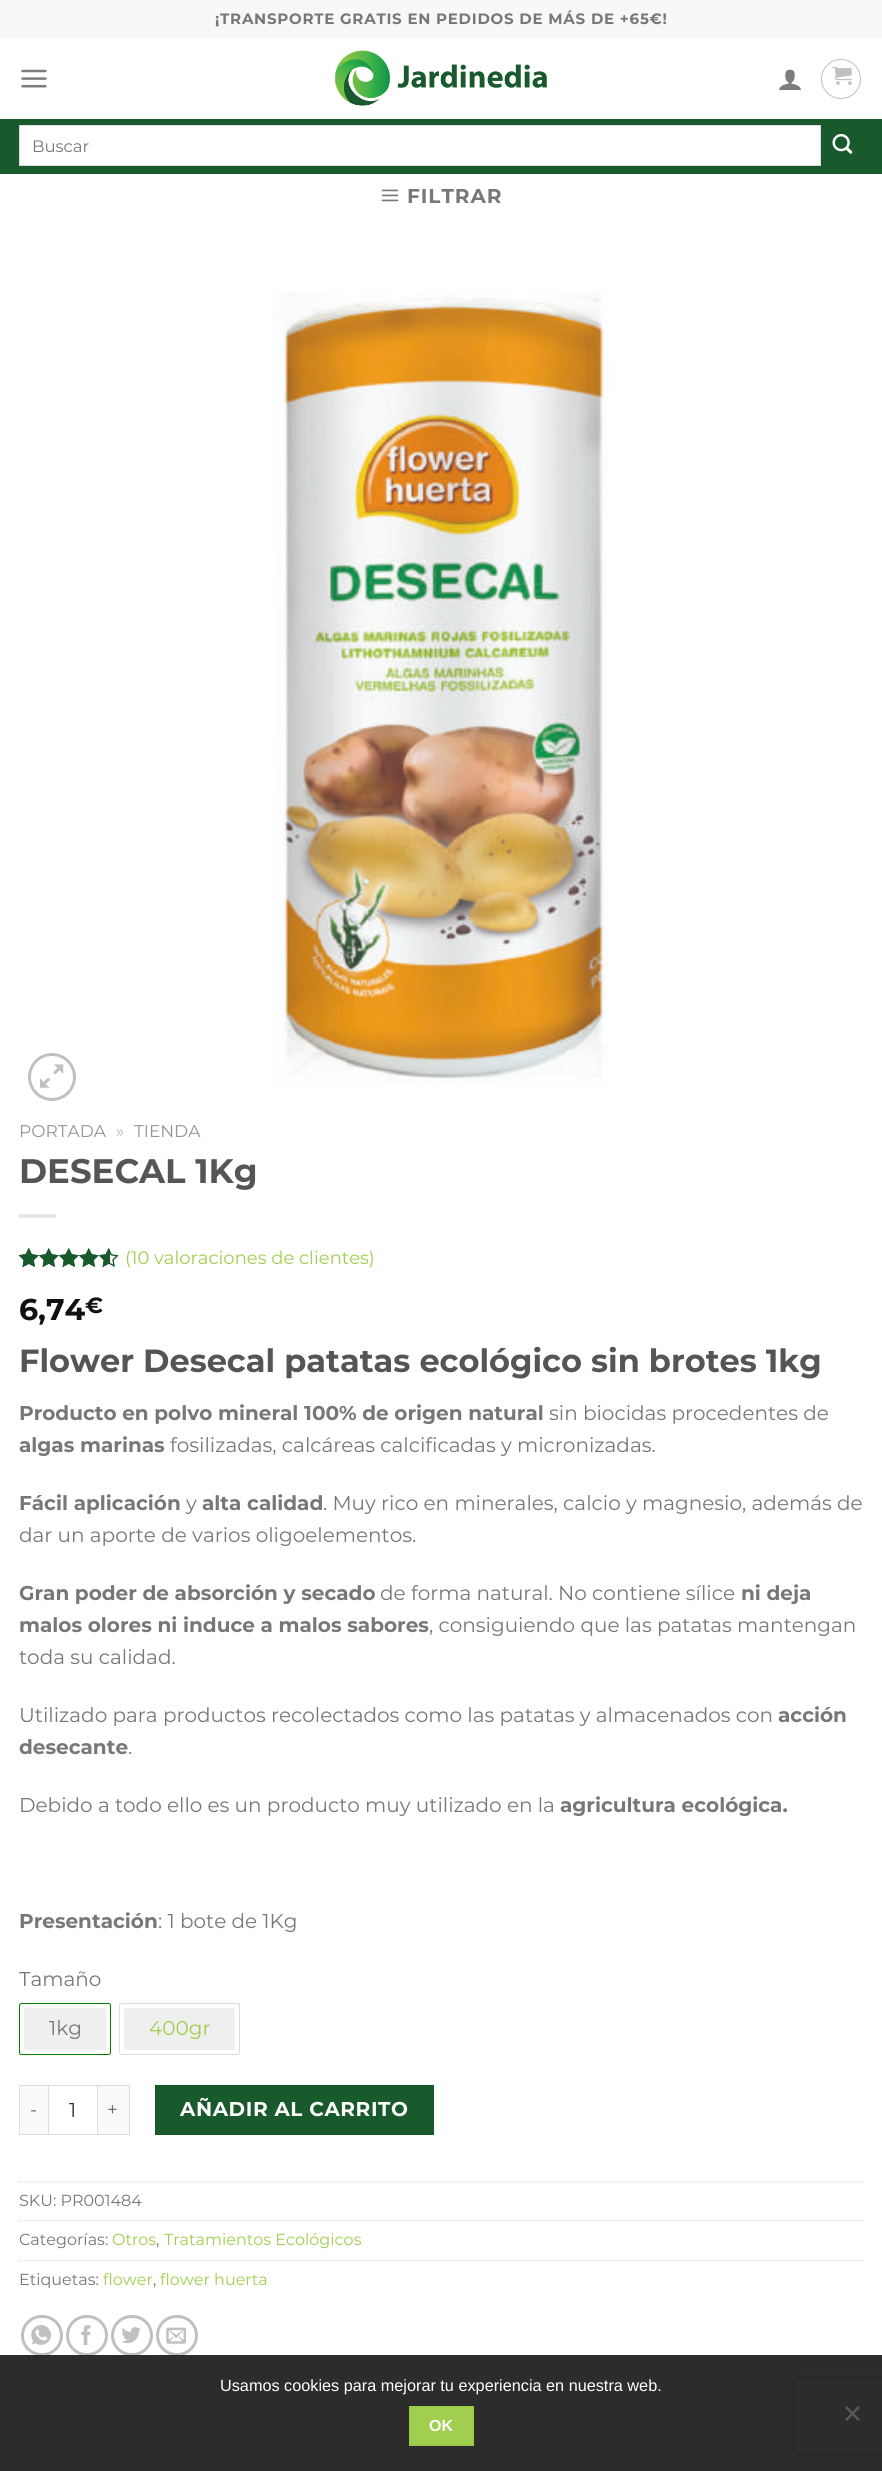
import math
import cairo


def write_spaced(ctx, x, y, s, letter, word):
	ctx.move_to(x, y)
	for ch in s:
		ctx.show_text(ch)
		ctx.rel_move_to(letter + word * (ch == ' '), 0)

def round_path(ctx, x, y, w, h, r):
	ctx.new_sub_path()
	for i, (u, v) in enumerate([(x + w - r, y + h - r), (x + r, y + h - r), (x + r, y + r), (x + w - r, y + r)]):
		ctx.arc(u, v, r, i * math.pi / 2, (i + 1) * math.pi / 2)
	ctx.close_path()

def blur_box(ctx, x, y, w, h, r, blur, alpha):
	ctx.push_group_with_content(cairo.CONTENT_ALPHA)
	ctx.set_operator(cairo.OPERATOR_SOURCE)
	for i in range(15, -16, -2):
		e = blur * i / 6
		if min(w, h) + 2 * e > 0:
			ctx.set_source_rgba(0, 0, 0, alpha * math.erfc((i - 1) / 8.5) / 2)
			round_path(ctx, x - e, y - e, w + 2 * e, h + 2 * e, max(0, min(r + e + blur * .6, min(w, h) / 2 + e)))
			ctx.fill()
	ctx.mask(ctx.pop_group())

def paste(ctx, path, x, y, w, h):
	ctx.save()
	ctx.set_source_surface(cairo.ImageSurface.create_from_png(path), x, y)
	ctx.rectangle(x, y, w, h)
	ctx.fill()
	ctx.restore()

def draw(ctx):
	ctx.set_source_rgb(1, 1, 1)
	ctx.paint()
	ctx.set_source_rgb(0.969, 0.969, 0.969)
	ctx.rectangle(0, 0, 882, 38)
	ctx.fill()
	ctx.select_font_face('Montserrat', cairo.FONT_SLANT_NORMAL, cairo.FONT_WEIGHT_BOLD)
	ctx.set_font_size(15)
	ctx.set_source_rgb(0.467, 0.467, 0.467)
	write_spaced(ctx, 215, 24, '¡TRANSPORTE GRATIS EN PEDIDOS DE MÁS DE +65€!', 0.75, 0)
	paste(ctx, 'media/1.png', 21, 69, 26, 19)
	paste(ctx, 'media/2.png', 335, 50, 212, 56)
	paste(ctx, 'media/3.png', 779, 69, 22, 21)
	ctx.arc(841, 79, 19.5, 0, 2 * math.pi)
	ctx.set_source_rgb(0.753, 0.753, 0.753)
	ctx.set_line_width(1)
	ctx.stroke()
	paste(ctx, 'media/4.png', 832, 66, 20, 19)
	ctx.set_source_rgb(0.098, 0.353, 0.176)
	ctx.rectangle(0, 119, 882, 55)
	ctx.fill()
	ctx.set_source_rgb(1, 1, 1)
	ctx.rectangle(19.5, 125.5, 801, 40)
	ctx.fill_preserve()
	ctx.set_source_rgb(0.867, 0.867, 0.867)
	ctx.stroke()
	ctx.select_font_face('Montserrat')
	ctx.set_font_size(16.5)
	ctx.set_source_rgb(0.467, 0.467, 0.467)
	ctx.move_to(32, 152)
	ctx.show_text('Buscar')
	ctx.rectangle(821.5, 125.5, 42, 42)
	ctx.set_source_rgb(0.094, 0.337, 0.169)
	ctx.stroke()
	paste(ctx, 'media/5.png', 832, 133, 21, 21)
	paste(ctx, 'media/6.png', 381, 189, 18, 13)
	ctx.select_font_face('Montserrat', cairo.FONT_SLANT_NORMAL, cairo.FONT_WEIGHT_BOLD)
	ctx.set_font_size(20)
	ctx.set_source_rgb(0.467, 0.467, 0.467)
	write_spaced(ctx, 407, 203, 'FILTRAR', 1, 0)
	ctx.new_path()
	ctx.arc(52, 1077, 22.5, 0, 2 * math.pi)
	ctx.set_source_rgb(0.753, 0.753, 0.753)
	ctx.set_line_width(3)
	ctx.stroke()
	paste(ctx, 'media/7.png', 40, 1064, 24, 24)
	paste(ctx, 'media/8.png', 271, 292, 338, 793)
	ctx.select_font_face('Montserrat')
	ctx.set_font_size(17)
	ctx.set_source_rgb(0.58, 0.58, 0.58)
	ctx.move_to(19, 1137)
	ctx.show_text('PORTADA')
	ctx.set_source_rgb(0.698, 0.698, 0.698)
	ctx.move_to(116, 1137)
	ctx.show_text('»')
	ctx.set_source_rgb(0.58, 0.58, 0.58)
	ctx.move_to(134, 1137)
	ctx.show_text('TIENDA')
	ctx.select_font_face('Montserrat', cairo.FONT_SLANT_NORMAL, cairo.FONT_WEIGHT_BOLD)
	ctx.set_font_size(34)
	ctx.set_source_rgb(0.333, 0.333, 0.333)
	ctx.move_to(19, 1183)
	ctx.show_text('DESECAL 1Kg')
	ctx.set_source_rgb(0.902, 0.902, 0.902)
	ctx.rectangle(19, 1214, 37, 4)
	ctx.fill()
	paste(ctx, 'media/9.png', 19, 1248, 100, 19)
	paste(ctx, 'media/10.png', 19, 1248, 91, 19)
	paste(ctx, 'media/11.png', 19, 1248, 12, 19)
	ctx.select_font_face('Montserrat')
	ctx.set_font_size(18)
	ctx.set_source_rgb(0.627, 0.808, 0.306)
	ctx.move_to(125, 1264)
	ctx.show_text('(10 valoraciones de clientes)')
	ctx.select_font_face('Montserrat', cairo.FONT_SLANT_NORMAL, cairo.FONT_WEIGHT_BOLD)
	ctx.set_font_size(30)
	ctx.set_source_rgb(0.067, 0.067, 0.067)
	ctx.move_to(19, 1320)
	ctx.show_text('6,74')
	ctx.set_font_size(22)
	ctx.move_to(85, 1313)
	ctx.show_text('€')
	ctx.set_font_size(32)
	ctx.set_source_rgb(0.333, 0.333, 0.333)
	ctx.move_to(19, 1372)
	ctx.show_text('Flower Desecal patatas ecológico sin brotes 1kg')
	ctx.set_font_size(20)
	ctx.set_source_rgb(0.467, 0.467, 0.467)
	ctx.move_to(19, 1420)
	ctx.show_text('Producto en polvo mineral 100% de origen natural')
	ctx.select_font_face('Montserrat')
	ctx.move_to(549, 1420)
	ctx.show_text('sin biocidas procedentes de')
	ctx.select_font_face('Montserrat', cairo.FONT_SLANT_NORMAL, cairo.FONT_WEIGHT_BOLD)
	ctx.move_to(19, 1452)
	ctx.show_text('algas marinas')
	ctx.select_font_face('Montserrat')
	ctx.move_to(170, 1452)
	ctx.show_text('fosilizadas, calcáreas calcificadas y micronizadas.')
	ctx.select_font_face('Montserrat', cairo.FONT_SLANT_NORMAL, cairo.FONT_WEIGHT_BOLD)
	ctx.move_to(19, 1510)
	ctx.show_text('Fácil aplicación')
	ctx.select_font_face('Montserrat')
	ctx.move_to(186, 1510)
	ctx.show_text('y')
	ctx.select_font_face('Montserrat', cairo.FONT_SLANT_NORMAL, cairo.FONT_WEIGHT_BOLD)
	ctx.move_to(202, 1510)
	ctx.show_text('alta calidad')
	ctx.select_font_face('Montserrat')
	ctx.move_to(323, 1510)
	ctx.show_text('. Muy rico en minerales, calcio y magnesio, además de')
	ctx.move_to(19, 1542)
	ctx.show_text('dar un aporte de varios oligoelementos.')
	ctx.select_font_face('Montserrat', cairo.FONT_SLANT_NORMAL, cairo.FONT_WEIGHT_BOLD)
	ctx.move_to(19, 1600)
	ctx.show_text('Gran poder de absorción y secado')
	ctx.select_font_face('Montserrat')
	ctx.move_to(380, 1600)
	ctx.show_text('de forma natural. No contiene sílice')
	ctx.select_font_face('Montserrat', cairo.FONT_SLANT_NORMAL, cairo.FONT_WEIGHT_BOLD)
	ctx.move_to(741, 1600)
	ctx.show_text('ni deja')
	ctx.move_to(19, 1632)
	ctx.show_text('malos olores ni induce a malos sabores')
	ctx.select_font_face('Montserrat')
	for x, y, s in [
		(429, 1632, ', consiguiendo que las patatas mantengan'),
		(19, 1664, 'toda su calidad.'),
		(19, 1722, 'Utilizado para productos recolectados como las patatas y almacenados con'),
	]:
		ctx.move_to(x, y)
		ctx.show_text(s)
	ctx.select_font_face('Montserrat', cairo.FONT_SLANT_NORMAL, cairo.FONT_WEIGHT_BOLD)
	ctx.move_to(778, 1722)
	ctx.show_text('acción')
	ctx.move_to(19, 1754)
	ctx.show_text('desecante')
	ctx.select_font_face('Montserrat')
	ctx.move_to(128, 1754)
	ctx.show_text('.')
	ctx.move_to(19, 1812)
	ctx.show_text('Debido a todo ello es un producto muy utilizado en la')
	ctx.select_font_face('Montserrat', cairo.FONT_SLANT_NORMAL, cairo.FONT_WEIGHT_BOLD)
	ctx.move_to(560, 1812)
	ctx.show_text('agricultura ecológica.')
	ctx.move_to(19, 1928)
	ctx.show_text('Presentación')
	ctx.select_font_face('Montserrat')
	ctx.move_to(158, 1928)
	ctx.show_text(': 1 bote de 1Kg')
	ctx.move_to(19, 1986)
	ctx.show_text('Tamaño')
	round_path(ctx, 19.5, 2003.5, 91, 51, 2)
	ctx.set_source_rgb(0, 0.502, 0)
	ctx.set_line_width(1)
	ctx.stroke()
	ctx.set_source_rgb(0.937, 0.937, 0.937)
	round_path(ctx, 24, 2008, 82, 42, 2.5)
	ctx.fill()
	ctx.set_source_rgb(0.467, 0.467, 0.467)
	ctx.move_to(49, 2035)
	ctx.show_text('1kg')
	round_path(ctx, 119.5, 2003.5, 120, 51, 2)
	ctx.set_source_rgb(0.867, 0.867, 0.867)
	ctx.stroke()
	ctx.set_source_rgb(0.937, 0.937, 0.937)
	round_path(ctx, 124, 2008, 111, 42, 2.5)
	ctx.fill()
	ctx.set_source_rgb(0.627, 0.808, 0.306)
	ctx.move_to(149, 2035)
	ctx.show_text('400gr')
	ctx.set_source_rgb(0.976, 0.976, 0.976)
	ctx.rectangle(20, 2086, 28, 48)
	ctx.fill()
	ctx.set_source_rgb(0.867, 0.867, 0.867)
	ctx.rectangle(19, 2085, 29, 1)
	ctx.rectangle(19, 2134, 29, 1)
	ctx.rectangle(19, 2085, 1, 50)
	ctx.fill()
	ctx.set_font_size(19)
	ctx.set_source_rgb(0.4, 0.4, 0.4)
	write_spaced(ctx, 30, 2116, '-', 1, 0)
	ctx.rectangle(48.5, 2085.5, 49, 49)
	ctx.set_source_rgb(0.867, 0.867, 0.867)
	ctx.stroke()
	ctx.set_font_size(20)
	ctx.set_source_rgb(0.2, 0.2, 0.2)
	ctx.move_to(69, 2117)
	ctx.show_text('1')
	ctx.set_source_rgb(0.976, 0.976, 0.976)
	ctx.rectangle(98, 2086, 31, 48)
	ctx.fill()
	ctx.set_source_rgb(0.867, 0.867, 0.867)
	ctx.rectangle(98, 2085, 32, 1)
	ctx.rectangle(129, 2085, 1, 50)
	ctx.rectangle(98, 2134, 32, 1)
	ctx.fill()
	ctx.set_font_size(19)
	ctx.set_source_rgb(0.4, 0.4, 0.4)
	write_spaced(ctx, 107, 2116, '+', 1, 0)
	ctx.set_source_rgb(0.098, 0.353, 0.176)
	ctx.rectangle(155.5, 2085.5, 278, 49)
	ctx.fill_preserve()
	ctx.set_source_rgb(0.094, 0.337, 0.169)
	ctx.stroke()
	ctx.select_font_face('Montserrat', cairo.FONT_SLANT_NORMAL, cairo.FONT_WEIGHT_BOLD)
	ctx.set_font_size(20)
	ctx.set_source_rgb(1, 1, 1)
	write_spaced(ctx, 180, 2116, 'AÑADIR AL CARRITO', 0.6, 0)
	ctx.new_path()
	ctx.move_to(19, 2182)
	ctx.line_to(864, 2182)
	ctx.set_source_rgb(0.867, 0.867, 0.867)
	ctx.set_line_width(1.2)
	ctx.set_dash([1.25, 1.25])
	ctx.stroke()
	ctx.select_font_face('Montserrat')
	ctx.set_font_size(16)
	ctx.set_source_rgb(0.467, 0.467, 0.467)
	ctx.move_to(19, 2206)
	ctx.show_text('SKU: PR001484')
	ctx.new_path()
	ctx.move_to(19, 2220.5)
	ctx.line_to(864, 2220.5)
	ctx.set_source_rgb(0.867, 0.867, 0.867)
	ctx.stroke()
	ctx.set_source_rgb(0.467, 0.467, 0.467)
	ctx.move_to(19, 2245)
	ctx.show_text('Categorías:')
	ctx.set_source_rgb(0.627, 0.808, 0.306)
	ctx.move_to(112, 2245)
	ctx.show_text('Otros')
	ctx.set_source_rgb(0.467, 0.467, 0.467)
	ctx.move_to(156, 2245)
	ctx.show_text(',')
	ctx.set_source_rgb(0.627, 0.808, 0.306)
	ctx.move_to(164, 2245)
	ctx.show_text('Tratamientos Ecológicos')
	ctx.new_path()
	ctx.move_to(19, 2260.5)
	ctx.line_to(864, 2260.5)
	ctx.set_source_rgb(0.867, 0.867, 0.867)
	ctx.stroke()
	ctx.set_source_rgb(0.467, 0.467, 0.467)
	ctx.move_to(19, 2285)
	ctx.show_text('Etiquetas:')
	ctx.set_source_rgb(0.627, 0.808, 0.306)
	ctx.move_to(103, 2285)
	ctx.show_text('flower')
	ctx.set_source_rgb(0.467, 0.467, 0.467)
	ctx.move_to(153, 2285)
	ctx.show_text(',')
	ctx.set_source_rgb(0.627, 0.808, 0.306)
	ctx.move_to(160, 2285)
	ctx.show_text('flower huerta')
	round_path(ctx, 22.5, 2316.5, 39, 38, 19)
	ctx.set_source_rgb(0.753, 0.753, 0.753)
	ctx.set_line_width(3)
	ctx.set_dash([])
	ctx.stroke()
	paste(ctx, 'media/12.png', 31, 2325, 20, 20)
	round_path(ctx, 67.5, 2316.5, 39, 38, 19)
	ctx.stroke()
	paste(ctx, 'media/13.png', 81, 2325, 10, 20)
	round_path(ctx, 112.5, 2316.5, 39, 38, 19)
	ctx.stroke()
	paste(ctx, 'media/14.png', 121, 2327, 20, 17)
	round_path(ctx, 157.5, 2316.5, 39, 38, 19)
	ctx.stroke()
	paste(ctx, 'media/15.png', 166, 2327, 20, 17)
	ctx.set_source_rgb(0.925, 0.925, 0.925)
	ctx.rectangle(19, 2460, 845, 1)
	ctx.fill()
	ctx.save()
	ctx.set_fill_rule(cairo.FILL_RULE_EVEN_ODD)
	ctx.new_path()
	ctx.move_to(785, 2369)
	ctx.line_to(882, 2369)
	ctx.line_to(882, 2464)
	ctx.line_to(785, 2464)
	ctx.close_path()
	ctx.move_to(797.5, 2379)
	ctx.line_to(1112.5, 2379)
	ctx.curve_to(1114, 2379, 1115, 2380, 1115, 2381.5)
	ctx.line_to(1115, 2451.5)
	ctx.curve_to(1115, 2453, 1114, 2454, 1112.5, 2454)
	ctx.line_to(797.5, 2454)
	ctx.curve_to(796, 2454, 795, 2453, 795, 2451.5)
	ctx.line_to(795, 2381.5)
	ctx.curve_to(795, 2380, 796, 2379, 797.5, 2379)
	ctx.close_path()
	ctx.clip()
	ctx.set_source_rgb(0.502, 0.502, 0.502)
	blur_box(ctx, 795, 2379, 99, 75, 2.5, 3, 1)
	ctx.restore()
	ctx.set_source_rgba(0.086, 0.086, 0.086, 0.9)
	ctx.rectangle(0, 2355, 882, 116)
	ctx.fill()
	ctx.select_font_face('Liberation Sans')
	ctx.set_font_size(16.25)
	ctx.set_source_rgb(1, 1, 1)
	ctx.move_to(220, 2391)
	ctx.show_text('Usamos cookies para mejorar tu experiencia en nuestra web.')
	ctx.set_source_rgb(0.341, 0.341, 0.341)
	ctx.new_path()
	ctx.move_to(858, 2406)
	ctx.line_to(860, 2408)
	ctx.line_to(847, 2421)
	ctx.line_to(845, 2419.5)
	ctx.close_path()
	ctx.fill()
	ctx.new_path()
	ctx.move_to(845, 2408)
	ctx.line_to(847, 2406)
	ctx.line_to(860, 2419.5)
	ctx.line_to(858, 2421)
	ctx.close_path()
	ctx.fill()
	ctx.set_source_rgb(0.627, 0.808, 0.306)
	ctx.rectangle(409.5, 2406.5, 64, 39)
	ctx.fill_preserve()
	ctx.set_source_rgb(0.596, 0.769, 0.29)
	ctx.set_line_width(1)
	ctx.stroke()
	ctx.select_font_face('Liberation Sans', cairo.FONT_SLANT_NORMAL, cairo.FONT_WEIGHT_BOLD)
	ctx.set_font_size(16)
	ctx.set_source_rgb(1, 1, 1)
	ctx.move_to(429, 2431)
	ctx.show_text('OK')


surface = cairo.ImageSurface(cairo.FORMAT_RGB24, 882, 2471)
ctx = cairo.Context(surface)
options = cairo.FontOptions()
options.set_hint_metrics(cairo.HINT_METRICS_OFF)
options.set_hint_style(cairo.HINT_STYLE_NONE)
ctx.set_font_options(options)
ctx.set_miter_limit(4)
draw(ctx)
surface.write_to_png('image.png')
